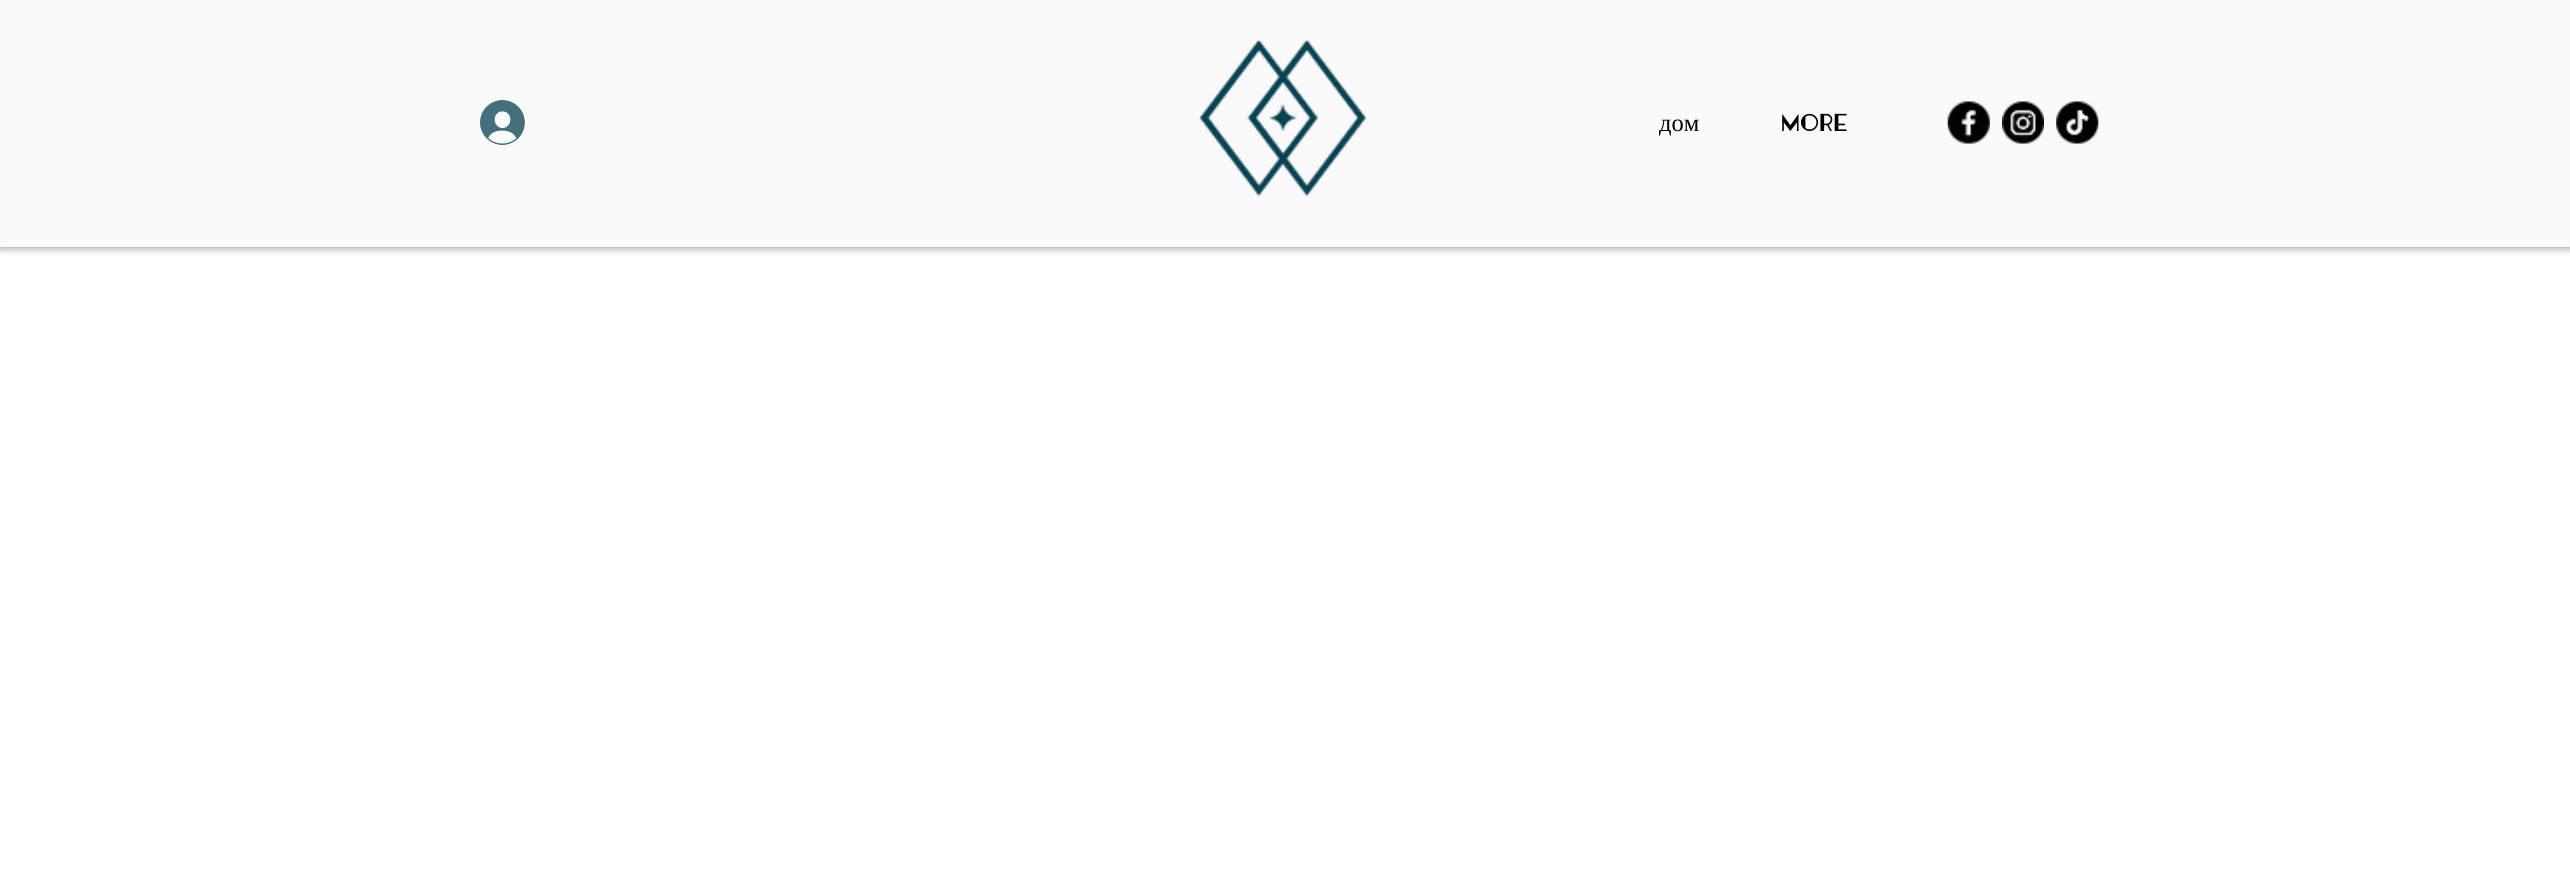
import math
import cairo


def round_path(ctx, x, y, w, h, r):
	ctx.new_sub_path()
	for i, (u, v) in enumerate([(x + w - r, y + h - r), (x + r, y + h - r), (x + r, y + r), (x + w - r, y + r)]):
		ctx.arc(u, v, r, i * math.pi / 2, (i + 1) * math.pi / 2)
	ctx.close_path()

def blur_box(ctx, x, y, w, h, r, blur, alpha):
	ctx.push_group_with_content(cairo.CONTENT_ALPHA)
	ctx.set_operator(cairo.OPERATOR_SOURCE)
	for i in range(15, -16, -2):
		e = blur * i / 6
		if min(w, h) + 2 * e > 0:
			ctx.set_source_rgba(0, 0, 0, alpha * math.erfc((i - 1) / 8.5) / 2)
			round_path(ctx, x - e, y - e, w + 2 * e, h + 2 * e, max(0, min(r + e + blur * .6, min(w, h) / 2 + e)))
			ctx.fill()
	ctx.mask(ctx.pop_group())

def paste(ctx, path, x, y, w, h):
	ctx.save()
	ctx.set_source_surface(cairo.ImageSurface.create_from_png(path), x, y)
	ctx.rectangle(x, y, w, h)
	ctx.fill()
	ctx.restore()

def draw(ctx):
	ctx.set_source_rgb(1, 1, 1)
	ctx.paint()
	ctx.set_source_rgb(0, 0, 0)
	blur_box(ctx, 0, 0, 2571, 247, 0, 4.5, 0.5)
	ctx.set_source_rgb(0.98, 0.98, 0.98)
	ctx.rectangle(0, 0, 2570, 247)
	ctx.fill()
	paste(ctx, 'media/1.png', 480, 100, 45, 45)
	paste(ctx, 'media/2.png', 1198, 40, 169, 157)
	ctx.select_font_face('Liberation Serif')
	ctx.set_font_size(24.5)
	ctx.set_source_rgb(0, 0, 0)
	ctx.move_to(1659, 131)
	ctx.show_text('дом')
	ctx.select_font_face('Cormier')
	ctx.move_to(1781, 131)
	ctx.show_text('More')
	paste(ctx, 'media/3.png', 1947, 101, 43, 43)
	paste(ctx, 'media/4.png', 2002, 101, 42, 43)
	paste(ctx, 'media/5.png', 2056, 101, 43, 43)


surface = cairo.ImageSurface(cairo.FORMAT_RGB24, 2570, 894)
ctx = cairo.Context(surface)
options = cairo.FontOptions()
options.set_hint_metrics(cairo.HINT_METRICS_OFF)
options.set_hint_style(cairo.HINT_STYLE_NONE)
ctx.set_font_options(options)
ctx.set_miter_limit(4)
draw(ctx)
surface.write_to_png('image.png')
